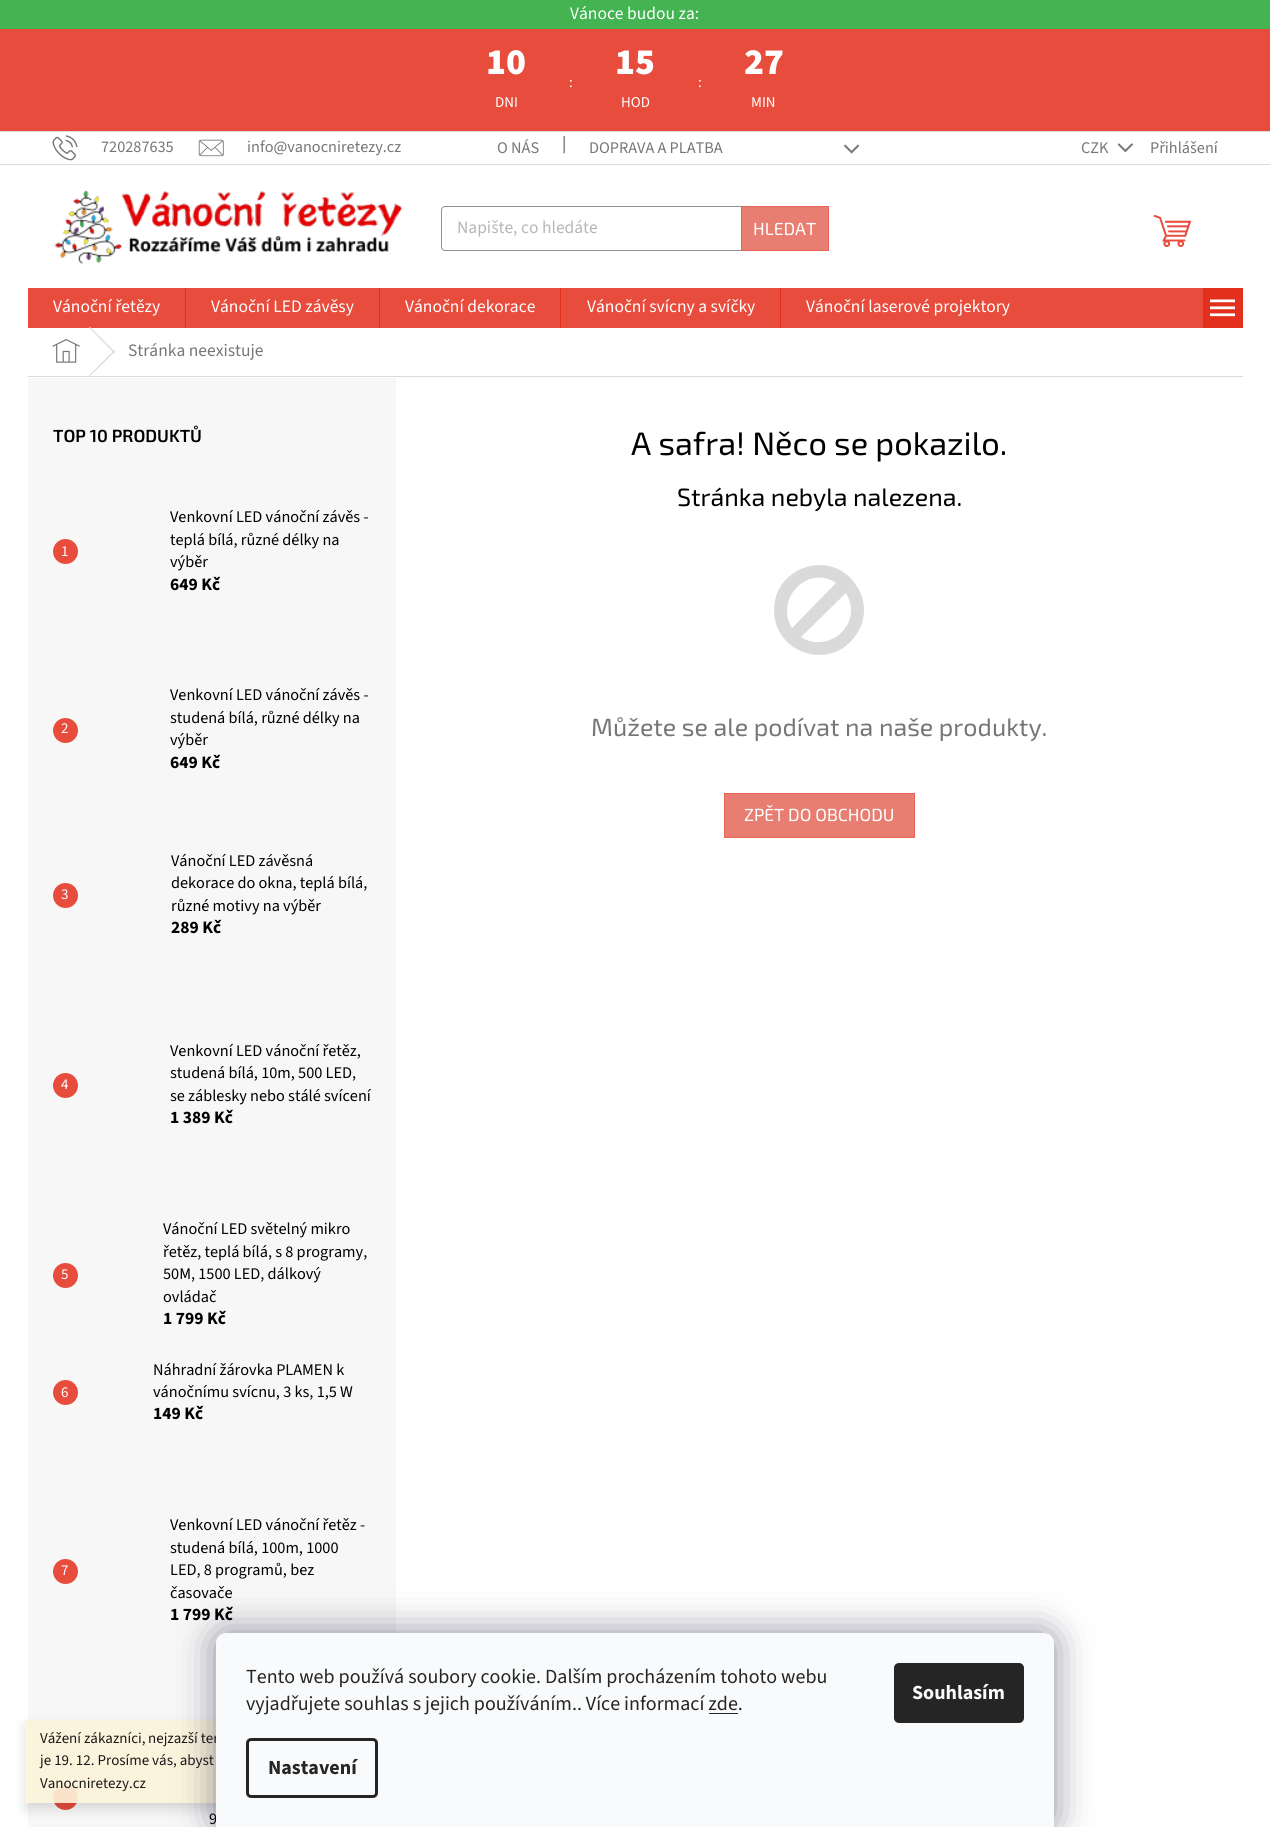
import math
import cairo


def round_path(ctx, x, y, w, h, r):
	ctx.new_sub_path()
	for i, (u, v) in enumerate([(x + w - r, y + h - r), (x + r, y + h - r), (x + r, y + r), (x + w - r, y + r)]):
		ctx.arc(u, v, r, i * math.pi / 2, (i + 1) * math.pi / 2)
	ctx.close_path()

def blur_box(ctx, x, y, w, h, r, blur, alpha):
	ctx.push_group_with_content(cairo.CONTENT_ALPHA)
	ctx.set_operator(cairo.OPERATOR_SOURCE)
	for i in range(15, -16, -2):
		e = blur * i / 6
		if min(w, h) + 2 * e > 0:
			ctx.set_source_rgba(0, 0, 0, alpha * math.erfc((i - 1) / 8.5) / 2)
			round_path(ctx, x - e, y - e, w + 2 * e, h + 2 * e, max(0, min(r + e + blur * .6, min(w, h) / 2 + e)))
			ctx.fill()
	ctx.mask(ctx.pop_group())

def paste(ctx, path, x, y, w, h):
	ctx.save()
	ctx.set_source_surface(cairo.ImageSurface.create_from_png(path), x, y)
	ctx.rectangle(x, y, w, h)
	ctx.fill()
	ctx.restore()

def draw(ctx):
	ctx.set_source_rgb(1, 1, 1)
	ctx.paint()
	ctx.set_source_rgb(0.906, 0.298, 0.235)
	ctx.rectangle(0, 29, 1270, 102)
	ctx.fill()
	ctx.set_source_rgb(0.267, 0.702, 0.318)
	ctx.rectangle(0, 0, 1270, 29)
	ctx.fill()
	ctx.select_font_face('Source Sans 3')
	ctx.set_font_size(17.5)
	ctx.set_source_rgb(1, 1, 1)
	ctx.move_to(570, 19)
	ctx.show_text('Vánoce budou za:')
	ctx.select_font_face('Source Sans 3 Black')
	ctx.set_font_size(37)
	ctx.move_to(486, 74)
	ctx.show_text('10')
	ctx.select_font_face('Source Sans 3')
	ctx.set_font_size(15)
	ctx.move_to(495, 107)
	ctx.show_text('DNI')
	ctx.move_to(569, 87)
	ctx.show_text(':')
	ctx.select_font_face('Source Sans 3 Black')
	ctx.set_font_size(37)
	ctx.move_to(615, 74)
	ctx.show_text('15')
	ctx.select_font_face('Source Sans 3')
	ctx.set_font_size(15)
	ctx.move_to(621, 107)
	ctx.show_text('HOD')
	ctx.move_to(698, 87)
	ctx.show_text(':')
	ctx.select_font_face('Source Sans 3 Black')
	ctx.set_font_size(37)
	ctx.move_to(744, 74)
	ctx.show_text('27')
	ctx.select_font_face('Source Sans 3')
	ctx.set_font_size(15)
	ctx.move_to(751, 107)
	ctx.show_text('MIN')
	ctx.set_source_rgb(0.855, 0.855, 0.855)
	ctx.rectangle(0, 131, 1270, 1)
	ctx.fill()
	ctx.rectangle(0, 164, 1270, 1)
	ctx.fill()
	paste(ctx, 'media/1.png', 52, 135, 26, 26)
	ctx.set_font_size(16.25)
	ctx.set_source_rgb(0.463, 0.463, 0.463)
	ctx.move_to(101, 152)
	ctx.show_text('720287635')
	paste(ctx, 'media/2.png', 198, 139, 26, 18)
	ctx.move_to(247, 152)
	ctx.show_text('info@vanocniretezy.cz')
	ctx.move_to(497, 153)
	ctx.show_text('O NÁS')
	ctx.set_font_size(17.5)
	ctx.set_source_rgb(0.302, 0.302, 0.302)
	ctx.move_to(562, 149)
	ctx.show_text('|')
	ctx.set_font_size(16.25)
	ctx.set_source_rgb(0.463, 0.463, 0.463)
	ctx.move_to(589, 153)
	ctx.show_text('DOPRAVA A PLATBA')
	paste(ctx, 'media/3.png', 843, 144, 17, 10)
	ctx.move_to(1081, 153)
	ctx.show_text('CZK')
	paste(ctx, 'media/4.png', 1117, 143, 17, 10)
	ctx.move_to(1150, 153)
	ctx.show_text('Přihlášení')
	paste(ctx, 'media/5.png', 54, 190, 348, 74)
	round_path(ctx, 441.5, 206.5, 387, 44, 3.5)
	ctx.set_source_rgb(0.569, 0.569, 0.569)
	ctx.set_line_width(1)
	ctx.stroke()
	ctx.set_font_size(17.5)
	ctx.set_source_rgb(0.714, 0.714, 0.714)
	ctx.move_to(457, 233)
	ctx.show_text('Napište, co hledáte')
	ctx.set_source_rgb(0.91, 0.494, 0.447)
	ctx.rectangle(741.5, 206.5, 87, 44)
	ctx.fill_preserve()
	ctx.set_source_rgb(0.91, 0.392, 0.337)
	ctx.stroke()
	ctx.select_font_face('Exo 2')
	ctx.set_source_rgb(1, 1, 1)
	ctx.move_to(753, 235)
	ctx.show_text('HLEDAT')
	paste(ctx, 'media/6.png', 1153, 214, 39, 33)
	ctx.set_source_rgb(0.906, 0.298, 0.235)
	ctx.rectangle(28, 288, 1175, 40)
	ctx.fill()
	ctx.select_font_face('Source Sans 3')
	ctx.set_source_rgb(1, 1, 1)
	ctx.move_to(53, 312)
	ctx.show_text('Vánoční řetězy')
	ctx.set_source_rgb(0.89, 0.188, 0.11)
	ctx.rectangle(185, 288, 1, 40)
	ctx.fill()
	ctx.set_source_rgb(1, 1, 1)
	ctx.move_to(211, 312)
	ctx.show_text('Vánoční LED závěsy')
	ctx.set_source_rgb(0.89, 0.188, 0.11)
	ctx.rectangle(379, 288, 1, 40)
	ctx.fill()
	ctx.set_source_rgb(1, 1, 1)
	ctx.move_to(405, 312)
	ctx.show_text('Vánoční dekorace')
	ctx.set_source_rgb(0.89, 0.188, 0.11)
	ctx.rectangle(560, 288, 1, 40)
	ctx.fill()
	ctx.set_source_rgb(1, 1, 1)
	ctx.move_to(587, 312)
	ctx.show_text('Vánoční svícny a svíčky')
	ctx.set_source_rgb(0.89, 0.188, 0.11)
	ctx.rectangle(780, 288, 1, 40)
	ctx.fill()
	ctx.set_source_rgb(1, 1, 1)
	ctx.move_to(806, 312)
	ctx.show_text('Vánoční laserové projektory')
	ctx.set_source_rgb(0.89, 0.188, 0.11)
	ctx.rectangle(1203, 288, 40, 40)
	ctx.fill()
	paste(ctx, 'media/7.png', 1210, 299, 25, 18)
	ctx.set_source_rgb(0.855, 0.855, 0.855)
	ctx.rectangle(28, 376, 1215, 1)
	ctx.fill()
	paste(ctx, 'media/8.png', 52, 339, 28, 24)
	ctx.new_path()
	ctx.move_to(89, 327.5)
	ctx.line_to(89.5, 326.5)
	ctx.line_to(115, 352)
	ctx.line_to(114, 353)
	ctx.close_path()
	ctx.fill()
	ctx.new_path()
	ctx.move_to(114, 350.5)
	ctx.line_to(115, 351.5)
	ctx.line_to(89.5, 376.5)
	ctx.line_to(89, 375.5)
	ctx.close_path()
	ctx.fill()
	ctx.set_source_rgb(0.463, 0.463, 0.463)
	ctx.move_to(128, 356)
	ctx.show_text('Stránka neexistuje')
	ctx.set_source_rgb(0.965, 0.965, 0.965)
	ctx.rectangle(28, 378, 368, 1449)
	ctx.fill()
	ctx.select_font_face('Exo 2 SemiBold')
	ctx.set_source_rgb(0, 0, 0)
	ctx.move_to(53, 442)
	ctx.show_text('TOP 10 PRODUKTŮ')
	ctx.set_source_rgb(0.906, 0.298, 0.235)
	ctx.new_path()
	ctx.arc(65.5, 551.5, 12.5, 0, 2 * math.pi)
	ctx.fill()
	ctx.select_font_face('Source Sans 3')
	ctx.set_font_size(15)
	ctx.set_source_rgb(1, 1, 1)
	ctx.move_to(61, 556)
	ctx.show_text('1')
	ctx.set_font_size(16.25)
	ctx.set_source_rgb(0, 0, 0)
	for x, y, s in [
		(170, 522, 'Venkovní LED vánoční závěs -'),
		(170, 545, 'teplá bílá, různé délky na'),
		(170, 567, 'výběr'),
	]:
		ctx.move_to(x, y)
		ctx.show_text(s)
	ctx.select_font_face('Source Sans 3', cairo.FONT_SLANT_NORMAL, cairo.FONT_WEIGHT_BOLD)
	ctx.set_font_size(17.5)
	ctx.move_to(170, 590)
	ctx.show_text('649 Kč')
	ctx.set_source_rgb(0.906, 0.298, 0.235)
	ctx.new_path()
	ctx.arc(65.5, 730.5, 12.5, 0, 2 * math.pi)
	ctx.fill()
	ctx.select_font_face('Source Sans 3')
	ctx.set_font_size(15)
	ctx.set_source_rgb(1, 1, 1)
	ctx.move_to(61, 733)
	ctx.show_text('2')
	ctx.set_font_size(16.25)
	ctx.set_source_rgb(0, 0, 0)
	for x, y, s in [
		(170, 700, 'Venkovní LED vánoční závěs -'),
		(170, 723, 'studená bílá, různé délky na'),
		(170, 745, 'výběr'),
	]:
		ctx.move_to(x, y)
		ctx.show_text(s)
	ctx.select_font_face('Source Sans 3', cairo.FONT_SLANT_NORMAL, cairo.FONT_WEIGHT_BOLD)
	ctx.set_font_size(17.5)
	ctx.move_to(170, 768)
	ctx.show_text('649 Kč')
	ctx.set_source_rgb(0.906, 0.298, 0.235)
	ctx.new_path()
	ctx.arc(65.5, 895.5, 12.5, 0, 2 * math.pi)
	ctx.fill()
	ctx.select_font_face('Source Sans 3')
	ctx.set_font_size(15)
	ctx.set_source_rgb(1, 1, 1)
	ctx.move_to(61, 899)
	ctx.show_text('3')
	ctx.set_font_size(16.25)
	ctx.set_source_rgb(0, 0, 0)
	for x, y, s in [
		(171, 866, 'Vánoční LED závěsná'),
		(171, 888, 'dekorace do okna, teplá bílá,'),
		(171, 911, 'různé motivy na výběr'),
	]:
		ctx.move_to(x, y)
		ctx.show_text(s)
	ctx.select_font_face('Source Sans 3', cairo.FONT_SLANT_NORMAL, cairo.FONT_WEIGHT_BOLD)
	ctx.set_font_size(17.5)
	ctx.move_to(171, 933)
	ctx.show_text('289 Kč')
	ctx.set_source_rgb(0.906, 0.298, 0.235)
	ctx.new_path()
	ctx.arc(65.5, 1085.5, 12.5, 0, 2 * math.pi)
	ctx.fill()
	ctx.select_font_face('Source Sans 3')
	ctx.set_font_size(15)
	ctx.set_source_rgb(1, 1, 1)
	ctx.move_to(61, 1089)
	ctx.show_text('4')
	ctx.set_font_size(16.25)
	ctx.set_source_rgb(0, 0, 0)
	for x, y, s in [
		(170, 1056, 'Venkovní LED vánoční řetěz,'),
		(170, 1078, 'studená bílá, 10m, 500 LED,'),
		(170, 1101, 'se záblesky nebo stálé svícení'),
	]:
		ctx.move_to(x, y)
		ctx.show_text(s)
	ctx.select_font_face('Source Sans 3', cairo.FONT_SLANT_NORMAL, cairo.FONT_WEIGHT_BOLD)
	ctx.set_font_size(17.5)
	ctx.move_to(170, 1123)
	ctx.show_text('1 389 Kč')
	ctx.set_source_rgb(0.906, 0.298, 0.235)
	ctx.new_path()
	ctx.arc(65.5, 1275.5, 12.5, 0, 2 * math.pi)
	ctx.fill()
	ctx.select_font_face('Source Sans 3')
	ctx.set_font_size(15)
	ctx.set_source_rgb(1, 1, 1)
	ctx.move_to(61, 1279)
	ctx.show_text('5')
	ctx.set_font_size(16.25)
	ctx.set_source_rgb(0, 0, 0)
	for x, y, s in [
		(163, 1234, 'Vánoční LED světelný mikro'),
		(163, 1257, 'řetěz, teplá bílá, s 8 programy,'),
		(163, 1279, '50M, 1500 LED, dálkový'),
		(163, 1302, 'ovládač'),
	]:
		ctx.move_to(x, y)
		ctx.show_text(s)
	ctx.select_font_face('Source Sans 3', cairo.FONT_SLANT_NORMAL, cairo.FONT_WEIGHT_BOLD)
	ctx.set_font_size(17.5)
	ctx.move_to(163, 1324)
	ctx.show_text('1 799 Kč')
	ctx.set_source_rgb(0.906, 0.298, 0.235)
	ctx.new_path()
	ctx.arc(65.5, 1392.5, 12.5, 0, 2 * math.pi)
	ctx.fill()
	ctx.select_font_face('Source Sans 3')
	ctx.set_font_size(15)
	ctx.set_source_rgb(1, 1, 1)
	ctx.move_to(61, 1397)
	ctx.show_text('6')
	ctx.set_font_size(16.25)
	ctx.set_source_rgb(0, 0, 0)
	ctx.move_to(153, 1375)
	ctx.show_text('Náhradní žárovka PLAMEN k')
	ctx.move_to(153, 1397)
	ctx.show_text('vánočnímu svícnu, 3 ks, 1,5 W')
	ctx.select_font_face('Source Sans 3', cairo.FONT_SLANT_NORMAL, cairo.FONT_WEIGHT_BOLD)
	ctx.set_font_size(17.5)
	ctx.move_to(153, 1419)
	ctx.show_text('149 Kč')
	ctx.set_source_rgb(0.906, 0.298, 0.235)
	ctx.new_path()
	ctx.arc(65.5, 1571.5, 12.5, 0, 2 * math.pi)
	ctx.fill()
	ctx.select_font_face('Source Sans 3')
	ctx.set_font_size(15)
	ctx.set_source_rgb(1, 1, 1)
	ctx.move_to(61, 1575)
	ctx.show_text('7')
	ctx.set_font_size(16.25)
	ctx.set_source_rgb(0, 0, 0)
	for x, y, s in [
		(170, 1530, 'Venkovní LED vánoční řetěz -'),
		(170, 1553, 'studená bílá, 100m, 1000'),
		(170, 1575, 'LED, 8 programů, bez'),
		(170, 1598, 'časovače'),
	]:
		ctx.move_to(x, y)
		ctx.show_text(s)
	ctx.select_font_face('Source Sans 3', cairo.FONT_SLANT_NORMAL, cairo.FONT_WEIGHT_BOLD)
	ctx.set_font_size(17.5)
	ctx.move_to(170, 1620)
	ctx.show_text('1 799 Kč')
	ctx.set_source_rgb(0.906, 0.298, 0.235)
	ctx.new_path()
	ctx.arc(65.5, 1797.5, 12.5, 0, 2 * math.pi)
	ctx.fill()
	ctx.select_font_face('Source Sans 3')
	ctx.set_font_size(16.25)
	ctx.set_source_rgb(0, 0, 0)
	ctx.move_to(209, 1824)
	ctx.show_text('9')
	ctx.select_font_face('Exo 2')
	ctx.set_font_size(32.5)
	ctx.move_to(631, 455)
	ctx.show_text('A safra! Něco se pokazilo.')
	ctx.set_font_size(25)
	ctx.move_to(677, 506)
	ctx.show_text('Stránka nebyla nalezena.')
	ctx.set_source_rgb(0.855, 0.855, 0.855)
	ctx.new_path()
	ctx.move_to(851, 610)
	ctx.curve_to(851, 604, 849, 598, 846, 593)
	ctx.line_to(801, 637)
	ctx.curve_to(822, 651, 851, 635, 851, 610)
	ctx.close_path()
	ctx.move_to(792, 628)
	ctx.line_to(836, 583)
	ctx.curve_to(808, 564, 774, 599, 792, 628)
	ctx.close_path()
	ctx.move_to(864, 610)
	ctx.curve_to(864, 619, 861, 628, 856, 635)
	ctx.curve_to(831, 672, 774, 654, 774, 610)
	ctx.curve_to(774, 566, 832, 548, 856, 585)
	ctx.curve_to(861, 592, 864, 601, 864, 610)
	ctx.close_path()
	ctx.fill()
	ctx.set_source_rgb(0.463, 0.463, 0.463)
	ctx.move_to(591, 736)
	ctx.show_text('Můžete se ale podívat na naše produkty.')
	ctx.set_source_rgb(0.91, 0.494, 0.447)
	ctx.rectangle(724.5, 793.5, 190, 44)
	ctx.fill_preserve()
	ctx.set_source_rgb(0.91, 0.392, 0.337)
	ctx.stroke()
	ctx.set_font_size(17.5)
	ctx.set_source_rgb(1, 1, 1)
	ctx.move_to(744, 821)
	ctx.show_text('ZPĚT DO OBCHODU')
	ctx.save()
	ctx.set_fill_rule(cairo.FILL_RULE_EVEN_ODD)
	ctx.new_path()
	ctx.move_to(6, 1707)
	ctx.line_to(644, 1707)
	ctx.line_to(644, 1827)
	ctx.line_to(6, 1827)
	ctx.close_path()
	ctx.move_to(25, 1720)
	ctx.line_to(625, 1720)
	ctx.line_to(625, 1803)
	ctx.line_to(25, 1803)
	ctx.close_path()
	ctx.clip()
	ctx.set_source_rgb(0, 0, 0)
	blur_box(ctx, 25, 1726, 600, 83, 0, 6, 0.14)
	ctx.restore()
	ctx.set_source_rgba(0.992, 0.953, 0.855, 0.9)
	ctx.rectangle(25, 1720, 191, 83)
	ctx.fill()
	ctx.select_font_face('Source Sans 3')
	ctx.set_font_size(15)
	ctx.set_source_rgb(0.098, 0.098, 0.098)
	for x, y, s in [
		(40, 1743, 'Vážení zákazníci,'),
		(148, 1743, 'nejzazší ter'),
		(40, 1765, 'je 19. 12. Prosíme vás, abyst'),
		(40, 1788, 'Vanocniretezy.cz'),
	]:
		ctx.move_to(x, y)
		ctx.show_text(s)
	ctx.set_source_rgb(0.106, 0.098, 0.224)
	blur_box(ctx, 216, 1633, 838, 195, 10, 19, 0.5)
	ctx.set_source_rgb(0.973, 0.98, 0.984)
	ctx.new_path()
	ctx.move_to(226, 1633)
	ctx.line_to(1044, 1633)
	ctx.curve_to(1049.5, 1633, 1054, 1637.5, 1054, 1643)
	ctx.line_to(1054, 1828)
	ctx.line_to(216, 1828)
	ctx.line_to(216, 1643)
	ctx.curve_to(216, 1637.5, 220.5, 1633, 226, 1633)
	ctx.close_path()
	ctx.fill()
	ctx.set_font_size(20)
	ctx.set_source_rgb(0.145, 0.145, 0.145)
	ctx.move_to(246, 1683)
	ctx.show_text('Tento web používá soubory cookie. Dalším procházením tohoto webu')
	ctx.move_to(246, 1710)
	ctx.show_text('vyjadřujete souhlas s jejich používáním.. Více informací zde.')
	ctx.rectangle(709, 1713, 29, 1)
	ctx.fill()
	round_path(ctx, 247.5, 1739.5, 129, 57, 3.5)
	ctx.set_line_width(3)
	ctx.stroke()
	ctx.select_font_face('Source Sans 3', cairo.FONT_SLANT_NORMAL, cairo.FONT_WEIGHT_BOLD)
	ctx.move_to(268, 1774)
	ctx.show_text('Nastavení')
	round_path(ctx, 894, 1663, 130, 60, 5)
	ctx.fill()
	ctx.set_source_rgb(0.973, 0.98, 0.984)
	ctx.move_to(912, 1699)
	ctx.show_text('Souhlasím')


surface = cairo.ImageSurface(cairo.FORMAT_RGB24, 1288, 1827)
ctx = cairo.Context(surface)
options = cairo.FontOptions()
options.set_hint_metrics(cairo.HINT_METRICS_OFF)
options.set_hint_style(cairo.HINT_STYLE_NONE)
ctx.set_font_options(options)
ctx.set_miter_limit(4)
draw(ctx)
surface.write_to_png('image.png')
